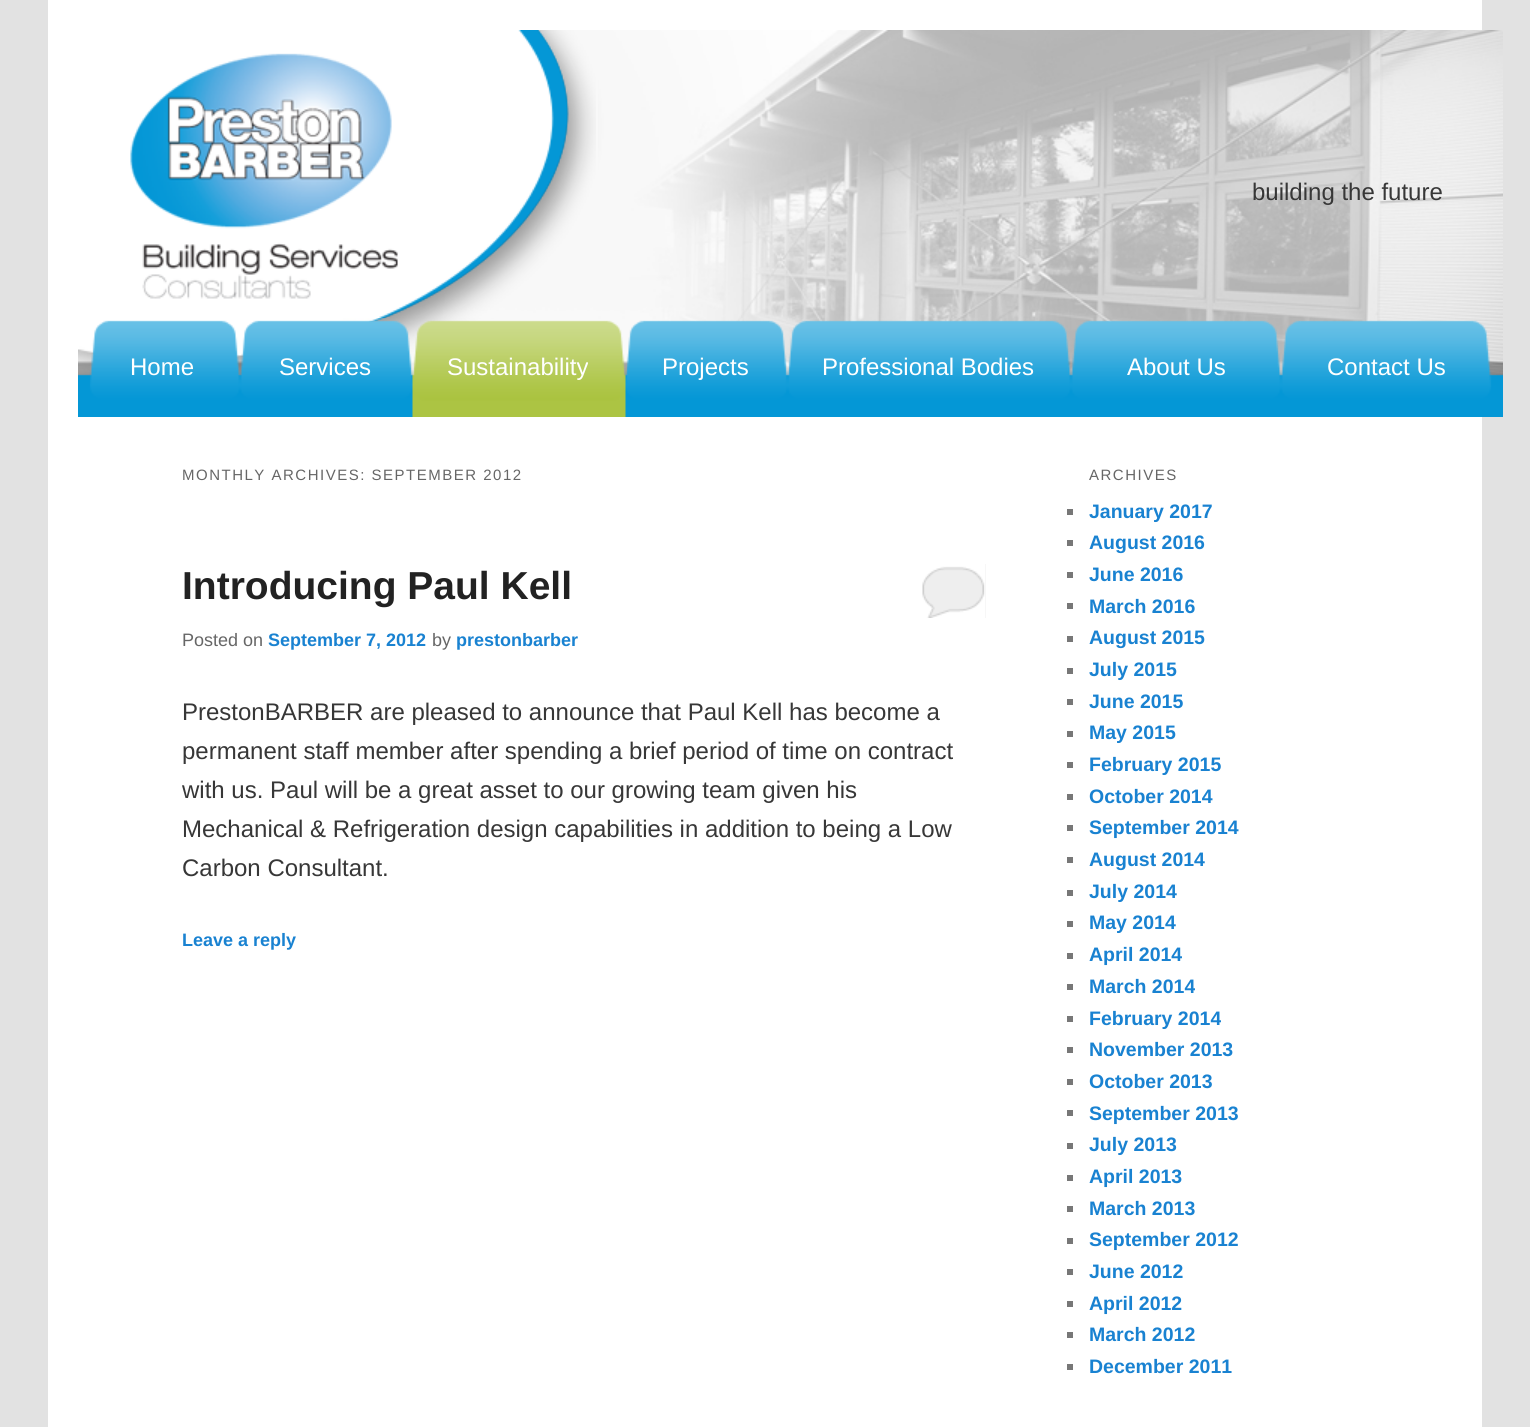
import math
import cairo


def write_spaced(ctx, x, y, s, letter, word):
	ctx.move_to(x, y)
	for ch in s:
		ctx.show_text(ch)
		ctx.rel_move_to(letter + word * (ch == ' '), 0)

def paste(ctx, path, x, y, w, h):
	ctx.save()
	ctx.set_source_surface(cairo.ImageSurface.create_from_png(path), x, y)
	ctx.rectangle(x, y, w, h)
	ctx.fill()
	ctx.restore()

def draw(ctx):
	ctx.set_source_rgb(0.886, 0.886, 0.886)
	ctx.paint()
	ctx.set_source_rgb(1, 1, 1)
	ctx.rectangle(48, 0, 1434, 1427)
	ctx.fill()
	paste(ctx, 'media/1.png', 78, 30, 1425, 346)
	paste(ctx, 'media/2.png', 382, 30, 216, 288)
	paste(ctx, 'media/3.png', 130, 30, 466, 288)
	ctx.select_font_face('Liberation Sans')
	ctx.set_font_size(24)
	ctx.set_source_rgb(0.216, 0.216, 0.216)
	ctx.move_to(1252, 200)
	ctx.show_text('building the future')
	paste(ctx, 'media/4.png', 78, 320, 1425, 97)
	ctx.set_source_rgb(1, 1, 1)
	for x, y, s in [
		(130, 375, 'Home'),
		(279, 375, 'Services'),
		(447, 375, 'Sustainability'),
		(662, 375, 'Projects'),
		(822, 375, 'Professional Bodies'),
		(1127, 375, 'About Us'),
		(1327, 375, 'Contact Us'),
	]:
		ctx.move_to(x, y)
		ctx.show_text(s)
	ctx.set_font_size(15)
	ctx.set_source_rgb(0.4, 0.4, 0.4)
	write_spaced(ctx, 182, 480, 'MONTHLY ARCHIVES: SEPTEMBER 2012', 1.5, 0)
	ctx.select_font_face('Liberation Sans', cairo.FONT_SLANT_NORMAL, cairo.FONT_WEIGHT_BOLD)
	ctx.set_font_size(39)
	ctx.set_source_rgb(0.133, 0.133, 0.133)
	ctx.move_to(182, 599)
	ctx.show_text('Introducing Paul Kell')
	ctx.set_source_rgb(0.933, 0.933, 0.933)
	ctx.rectangle(922, 564, 64, 54)
	ctx.fill()
	paste(ctx, 'media/5.png', 921, 564, 65, 54)
	ctx.select_font_face('Liberation Sans')
	ctx.set_font_size(18)
	ctx.set_source_rgb(0.4, 0.4, 0.4)
	ctx.move_to(182, 646)
	ctx.show_text('Posted on')
	ctx.select_font_face('Liberation Sans', cairo.FONT_SLANT_NORMAL, cairo.FONT_WEIGHT_BOLD)
	ctx.set_source_rgb(0.098, 0.51, 0.82)
	ctx.move_to(268, 646)
	ctx.show_text('September 7, 2012')
	ctx.select_font_face('Liberation Sans')
	ctx.set_source_rgb(0.4, 0.4, 0.4)
	ctx.move_to(432, 646)
	ctx.show_text('by')
	ctx.select_font_face('Liberation Sans', cairo.FONT_SLANT_NORMAL, cairo.FONT_WEIGHT_BOLD)
	ctx.set_source_rgb(0.098, 0.51, 0.82)
	ctx.move_to(456, 646)
	ctx.show_text('prestonbarber')
	ctx.select_font_face('Liberation Sans')
	ctx.set_font_size(24)
	ctx.set_source_rgb(0.216, 0.216, 0.216)
	for x, y, s in [
		(182, 720, 'PrestonBARBER are pleased to announce that Paul Kell has become a'),
		(182, 759, 'permanent staff member after spending a brief period of time on contract'),
		(182, 798, 'with us. Paul will be a great asset to our growing team given his'),
		(182, 837, 'Mechanical & Refrigeration design capabilities in addition to being a Low'),
		(182, 876, 'Carbon Consultant.'),
	]:
		ctx.move_to(x, y)
		ctx.show_text(s)
	ctx.select_font_face('Liberation Sans', cairo.FONT_SLANT_NORMAL, cairo.FONT_WEIGHT_BOLD)
	ctx.set_font_size(18)
	ctx.set_source_rgb(0.098, 0.51, 0.82)
	ctx.move_to(182, 946)
	ctx.show_text('Leave a reply')
	ctx.select_font_face('Liberation Sans')
	ctx.set_font_size(15)
	ctx.set_source_rgb(0.4, 0.4, 0.4)
	write_spaced(ctx, 1089, 480, 'ARCHIVES', 1.5, 0)
	ctx.set_source_rgb(0.467, 0.467, 0.467)
	ctx.rectangle(1067, 509, 6, 6)
	ctx.fill()
	ctx.select_font_face('Liberation Sans', cairo.FONT_SLANT_NORMAL, cairo.FONT_WEIGHT_BOLD)
	ctx.set_font_size(19.5)
	ctx.set_source_rgb(0.098, 0.51, 0.82)
	ctx.move_to(1089, 518)
	ctx.show_text('January 2017')
	ctx.set_source_rgb(0.467, 0.467, 0.467)
	ctx.rectangle(1067, 540, 6, 6)
	ctx.fill()
	ctx.set_source_rgb(0.098, 0.51, 0.82)
	ctx.move_to(1089, 549)
	ctx.show_text('August 2016')
	ctx.set_source_rgb(0.467, 0.467, 0.467)
	ctx.rectangle(1067, 572, 6, 6)
	ctx.fill()
	ctx.set_source_rgb(0.098, 0.51, 0.82)
	ctx.move_to(1089, 581)
	ctx.show_text('June 2016')
	ctx.set_source_rgb(0.467, 0.467, 0.467)
	ctx.rectangle(1067, 603, 6, 6)
	ctx.fill()
	ctx.set_source_rgb(0.098, 0.51, 0.82)
	ctx.move_to(1089, 613)
	ctx.show_text('March 2016')
	ctx.set_source_rgb(0.467, 0.467, 0.467)
	ctx.rectangle(1067, 636, 6, 6)
	ctx.fill()
	ctx.set_source_rgb(0.098, 0.51, 0.82)
	ctx.move_to(1089, 644)
	ctx.show_text('August 2015')
	ctx.set_source_rgb(0.467, 0.467, 0.467)
	ctx.rectangle(1067, 668, 6, 6)
	ctx.fill()
	ctx.set_source_rgb(0.098, 0.51, 0.82)
	ctx.move_to(1089, 676)
	ctx.show_text('July 2015')
	ctx.set_source_rgb(0.467, 0.467, 0.467)
	ctx.rectangle(1067, 699, 6, 6)
	ctx.fill()
	ctx.set_source_rgb(0.098, 0.51, 0.82)
	ctx.move_to(1089, 708)
	ctx.show_text('June 2015')
	ctx.set_source_rgb(0.467, 0.467, 0.467)
	ctx.rectangle(1067, 731, 6, 6)
	ctx.fill()
	ctx.set_source_rgb(0.098, 0.51, 0.82)
	ctx.move_to(1089, 739)
	ctx.show_text('May 2015')
	ctx.set_source_rgb(0.467, 0.467, 0.467)
	ctx.rectangle(1067, 762, 6, 6)
	ctx.fill()
	ctx.set_source_rgb(0.098, 0.51, 0.82)
	ctx.move_to(1089, 771)
	ctx.show_text('February 2015')
	ctx.set_source_rgb(0.467, 0.467, 0.467)
	ctx.rectangle(1067, 794, 6, 6)
	ctx.fill()
	ctx.set_source_rgb(0.098, 0.51, 0.82)
	ctx.move_to(1089, 803)
	ctx.show_text('October 2014')
	ctx.set_source_rgb(0.467, 0.467, 0.467)
	ctx.rectangle(1067, 825, 6, 6)
	ctx.fill()
	ctx.set_source_rgb(0.098, 0.51, 0.82)
	ctx.move_to(1089, 834)
	ctx.show_text('September 2014')
	ctx.set_source_rgb(0.467, 0.467, 0.467)
	ctx.rectangle(1067, 857, 6, 6)
	ctx.fill()
	ctx.set_source_rgb(0.098, 0.51, 0.82)
	ctx.move_to(1089, 866)
	ctx.show_text('August 2014')
	ctx.set_source_rgb(0.467, 0.467, 0.467)
	ctx.rectangle(1067, 890, 6, 6)
	ctx.fill()
	ctx.set_source_rgb(0.098, 0.51, 0.82)
	ctx.move_to(1089, 898)
	ctx.show_text('July 2014')
	ctx.set_source_rgb(0.467, 0.467, 0.467)
	ctx.rectangle(1067, 921, 6, 6)
	ctx.fill()
	ctx.set_source_rgb(0.098, 0.51, 0.82)
	ctx.move_to(1089, 929)
	ctx.show_text('May 2014')
	ctx.set_source_rgb(0.467, 0.467, 0.467)
	ctx.rectangle(1067, 953, 6, 6)
	ctx.fill()
	ctx.set_source_rgb(0.098, 0.51, 0.82)
	ctx.move_to(1089, 961)
	ctx.show_text('April 2014')
	ctx.set_source_rgb(0.467, 0.467, 0.467)
	ctx.rectangle(1067, 984, 6, 6)
	ctx.fill()
	ctx.set_source_rgb(0.098, 0.51, 0.82)
	ctx.move_to(1089, 993)
	ctx.show_text('March 2014')
	ctx.set_source_rgb(0.467, 0.467, 0.467)
	ctx.rectangle(1067, 1016, 6, 6)
	ctx.fill()
	ctx.set_source_rgb(0.098, 0.51, 0.82)
	ctx.move_to(1089, 1025)
	ctx.show_text('February 2014')
	ctx.set_source_rgb(0.467, 0.467, 0.467)
	ctx.rectangle(1067, 1047, 6, 6)
	ctx.fill()
	ctx.set_source_rgb(0.098, 0.51, 0.82)
	ctx.move_to(1089, 1056)
	ctx.show_text('November 2013')
	ctx.set_source_rgb(0.467, 0.467, 0.467)
	ctx.rectangle(1067, 1079, 6, 6)
	ctx.fill()
	ctx.set_source_rgb(0.098, 0.51, 0.82)
	ctx.move_to(1089, 1088)
	ctx.show_text('October 2013')
	ctx.set_source_rgb(0.467, 0.467, 0.467)
	ctx.rectangle(1067, 1110, 6, 6)
	ctx.fill()
	ctx.set_source_rgb(0.098, 0.51, 0.82)
	ctx.move_to(1089, 1120)
	ctx.show_text('September 2013')
	ctx.set_source_rgb(0.467, 0.467, 0.467)
	ctx.rectangle(1067, 1143, 6, 6)
	ctx.fill()
	ctx.set_source_rgb(0.098, 0.51, 0.82)
	ctx.move_to(1089, 1151)
	ctx.show_text('July 2013')
	ctx.set_source_rgb(0.467, 0.467, 0.467)
	ctx.rectangle(1067, 1175, 6, 6)
	ctx.fill()
	ctx.set_source_rgb(0.098, 0.51, 0.82)
	ctx.move_to(1089, 1183)
	ctx.show_text('April 2013')
	ctx.set_source_rgb(0.467, 0.467, 0.467)
	ctx.rectangle(1067, 1206, 6, 6)
	ctx.fill()
	ctx.set_source_rgb(0.098, 0.51, 0.82)
	ctx.move_to(1089, 1215)
	ctx.show_text('March 2013')
	ctx.set_source_rgb(0.467, 0.467, 0.467)
	ctx.rectangle(1067, 1238, 6, 6)
	ctx.fill()
	ctx.set_source_rgb(0.098, 0.51, 0.82)
	ctx.move_to(1089, 1246)
	ctx.show_text('September 2012')
	ctx.set_source_rgb(0.467, 0.467, 0.467)
	ctx.rectangle(1067, 1269, 6, 6)
	ctx.fill()
	ctx.set_source_rgb(0.098, 0.51, 0.82)
	ctx.move_to(1089, 1278)
	ctx.show_text('June 2012')
	ctx.set_source_rgb(0.467, 0.467, 0.467)
	ctx.rectangle(1067, 1301, 6, 6)
	ctx.fill()
	ctx.set_source_rgb(0.098, 0.51, 0.82)
	ctx.move_to(1089, 1310)
	ctx.show_text('April 2012')
	ctx.set_source_rgb(0.467, 0.467, 0.467)
	ctx.rectangle(1067, 1332, 6, 6)
	ctx.fill()
	ctx.set_source_rgb(0.098, 0.51, 0.82)
	ctx.move_to(1089, 1341)
	ctx.show_text('March 2012')
	ctx.set_source_rgb(0.467, 0.467, 0.467)
	ctx.rectangle(1067, 1364, 6, 6)
	ctx.fill()
	ctx.set_source_rgb(0.098, 0.51, 0.82)
	ctx.move_to(1089, 1373)
	ctx.show_text('December 2011')


surface = cairo.ImageSurface(cairo.FORMAT_RGB24, 1530, 1427)
ctx = cairo.Context(surface)
options = cairo.FontOptions()
options.set_hint_metrics(cairo.HINT_METRICS_OFF)
options.set_hint_style(cairo.HINT_STYLE_NONE)
ctx.set_font_options(options)
ctx.set_miter_limit(4)
draw(ctx)
surface.write_to_png('image.png')
